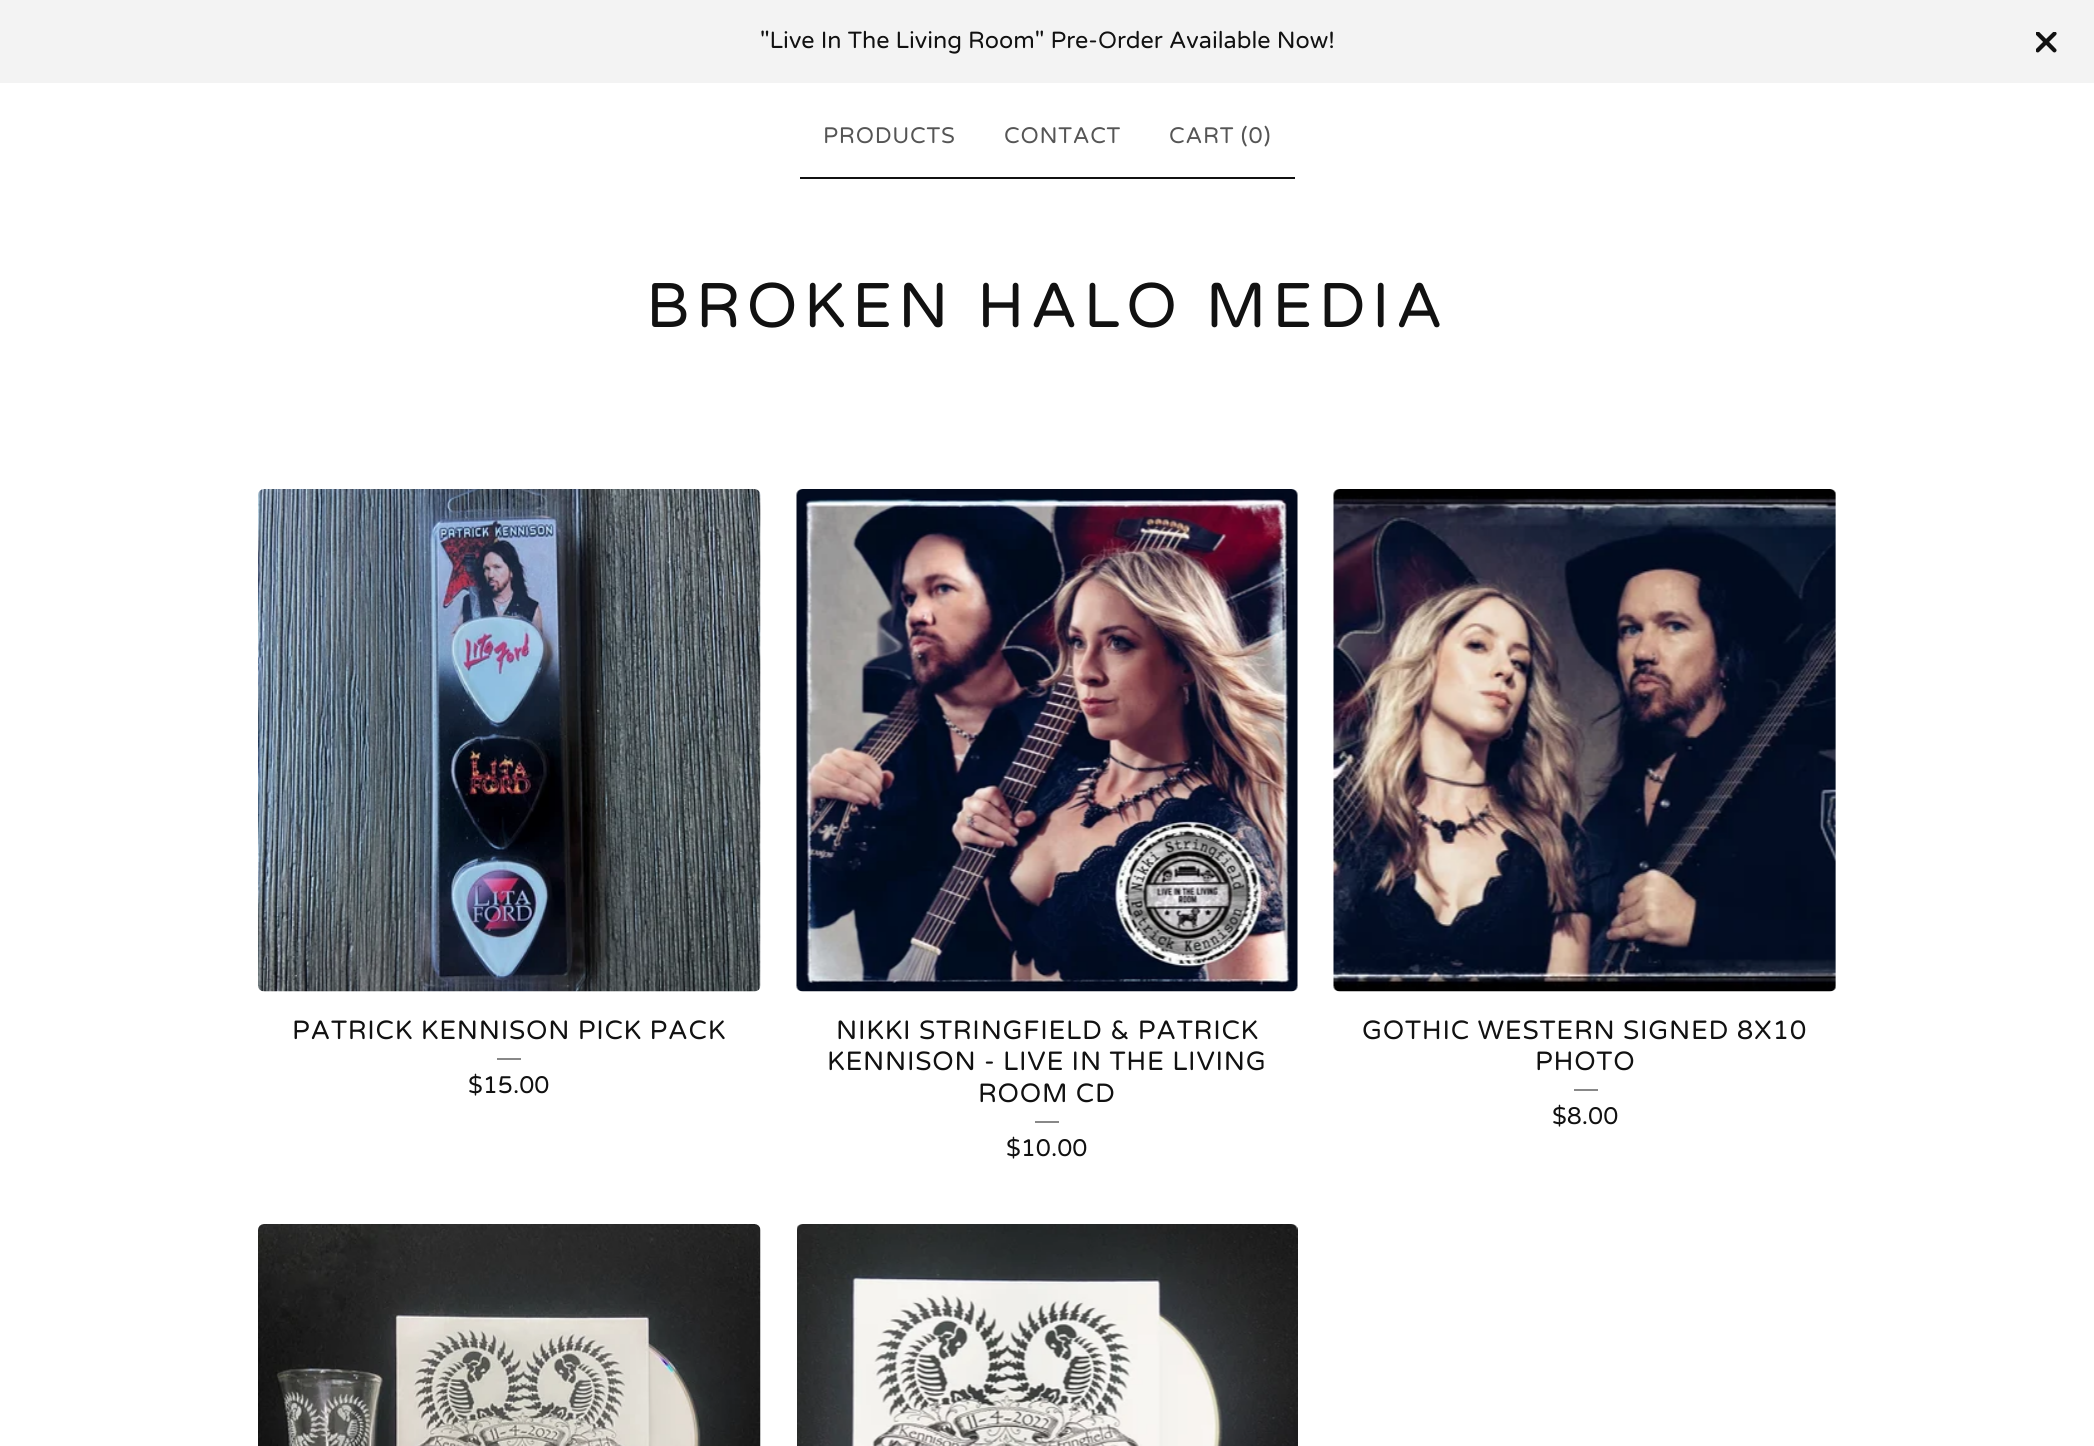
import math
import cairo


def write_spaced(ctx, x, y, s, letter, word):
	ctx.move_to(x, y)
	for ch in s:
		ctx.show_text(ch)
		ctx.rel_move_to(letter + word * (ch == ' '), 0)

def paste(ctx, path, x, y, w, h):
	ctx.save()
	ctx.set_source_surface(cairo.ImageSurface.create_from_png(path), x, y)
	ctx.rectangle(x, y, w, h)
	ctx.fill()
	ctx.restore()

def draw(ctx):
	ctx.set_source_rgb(1, 1, 1)
	ctx.paint()
	ctx.set_source_rgb(0.953, 0.953, 0.953)
	ctx.rectangle(0, 0, 2094, 83)
	ctx.fill()
	ctx.select_font_face('Varela Round')
	ctx.set_font_size(23.4)
	ctx.set_source_rgb(0.067, 0.067, 0.067)
	ctx.move_to(760, 48)
	ctx.show_text('"Live In The Living Room" Pre-Order Available Now!')
	paste(ctx, 'media/1.png', 2036, 32, 21, 21)
	ctx.rectangle(800, 177, 495, 2)
	ctx.fill()
	ctx.set_font_size(22.5)
	ctx.set_source_rgb(0.333, 0.333, 0.333)
	for x, y, s in [
		(823, 143, 'PRODUCTS'),
		(1004, 143, 'CONTACT'),
		(1169, 143, 'CART (0)'),
	]:
		write_spaced(ctx, x, y, s, 0.75, 0)
	ctx.set_font_size(63)
	ctx.set_source_rgb(0.067, 0.067, 0.067)
	write_spaced(ctx, 646, 327, 'BROKEN HALO MEDIA', 6, 0)
	paste(ctx, 'media/2.png', 258, 489, 503, 503)
	ctx.set_font_size(26.4)
	write_spaced(ctx, 292, 1039, 'PATRICK KENNISON PICK PACK', 0.75, 0)
	ctx.set_source_rgb(0.533, 0.533, 0.533)
	ctx.rectangle(497, 1058, 24, 2)
	ctx.fill()
	ctx.set_font_size(24)
	ctx.set_source_rgb(0.067, 0.067, 0.067)
	ctx.move_to(468, 1093)
	ctx.show_text('$15.00')
	paste(ctx, 'media/3.png', 796, 489, 502, 503)
	ctx.set_font_size(26.4)
	for x, y, s in [
		(836, 1039, 'NIKKI STRINGFIELD & PATRICK'),
		(827, 1070, 'KENNISON - LIVE IN THE LIVING'),
		(978, 1102, 'ROOM CD'),
	]:
		write_spaced(ctx, x, y, s, 0.75, 0)
	ctx.set_source_rgb(0.533, 0.533, 0.533)
	ctx.rectangle(1035, 1121, 24, 2)
	ctx.fill()
	ctx.set_font_size(24)
	ctx.set_source_rgb(0.067, 0.067, 0.067)
	ctx.move_to(1006, 1156)
	ctx.show_text('$10.00')
	paste(ctx, 'media/4.png', 1333, 489, 503, 503)
	ctx.set_font_size(26.4)
	write_spaced(ctx, 1362, 1039, 'GOTHIC WESTERN SIGNED 8X10', 0.75, 0)
	write_spaced(ctx, 1535, 1070, 'PHOTO', 0.75, 0)
	ctx.set_source_rgb(0.533, 0.533, 0.533)
	ctx.rectangle(1574, 1089, 24, 2)
	ctx.fill()
	ctx.set_font_size(24)
	ctx.set_source_rgb(0.067, 0.067, 0.067)
	ctx.move_to(1552, 1124)
	ctx.show_text('$8.00')
	paste(ctx, 'media/5.png', 258, 1224, 503, 222)
	paste(ctx, 'media/6.png', 797, 1224, 501, 222)


surface = cairo.ImageSurface(cairo.FORMAT_RGB24, 2094, 1446)
ctx = cairo.Context(surface)
options = cairo.FontOptions()
options.set_hint_metrics(cairo.HINT_METRICS_OFF)
options.set_hint_style(cairo.HINT_STYLE_NONE)
ctx.set_font_options(options)
ctx.set_miter_limit(4)
draw(ctx)
surface.write_to_png('image.png')
